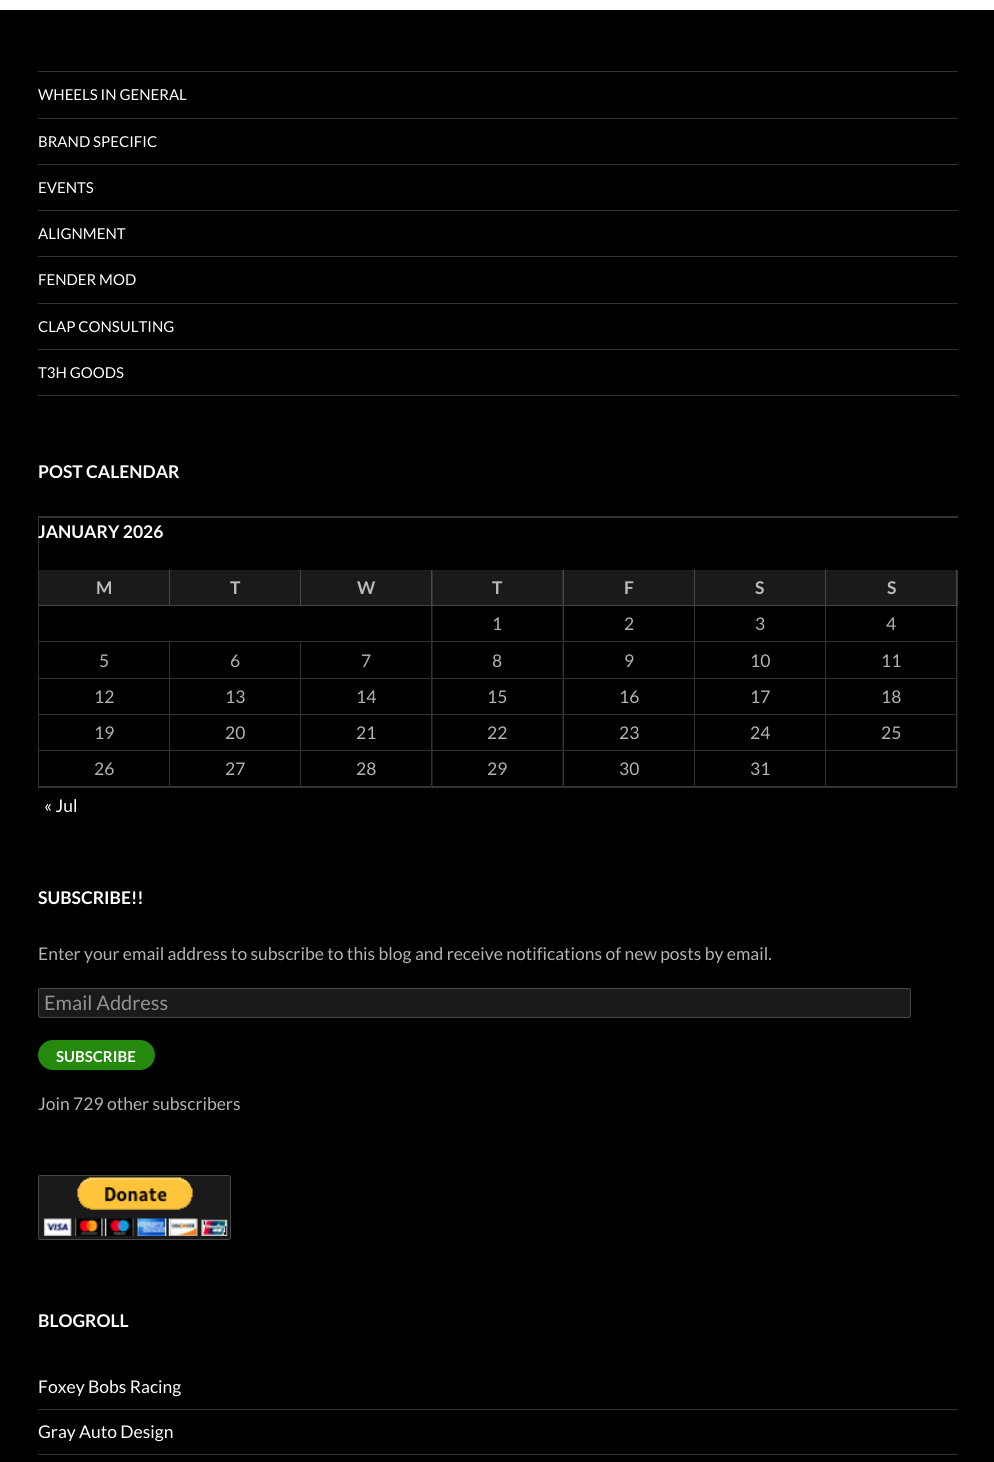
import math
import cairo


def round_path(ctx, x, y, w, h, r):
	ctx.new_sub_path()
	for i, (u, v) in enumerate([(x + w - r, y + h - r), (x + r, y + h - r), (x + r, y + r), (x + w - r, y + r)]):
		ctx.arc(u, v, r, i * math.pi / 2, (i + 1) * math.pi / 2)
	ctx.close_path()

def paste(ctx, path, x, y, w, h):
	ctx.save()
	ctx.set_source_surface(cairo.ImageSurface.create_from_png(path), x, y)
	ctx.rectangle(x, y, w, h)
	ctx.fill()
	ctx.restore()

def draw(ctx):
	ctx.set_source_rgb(1, 1, 1)
	ctx.paint()
	ctx.set_source_rgb(0, 0, 0)
	ctx.rectangle(0, 10, 994, 1452)
	ctx.fill()
	ctx.set_source_rgb(0.2, 0.2, 0.2)
	ctx.rectangle(38, 395, 920, 1)
	ctx.rectangle(38, 71, 920, 1)
	ctx.fill()
	ctx.select_font_face('Lato')
	ctx.set_font_size(15)
	ctx.set_source_rgb(1, 1, 1)
	ctx.move_to(38, 100)
	ctx.show_text('WHEELS IN GENERAL')
	ctx.set_source_rgb(0.2, 0.2, 0.2)
	ctx.rectangle(38, 118, 920, 1)
	ctx.fill()
	ctx.set_source_rgb(1, 1, 1)
	ctx.move_to(38, 147)
	ctx.show_text('BRAND SPECIFIC')
	ctx.set_source_rgb(0.2, 0.2, 0.2)
	ctx.rectangle(38, 164, 920, 1)
	ctx.fill()
	ctx.set_source_rgb(1, 1, 1)
	ctx.move_to(38, 193)
	ctx.show_text('EVENTS')
	ctx.set_source_rgb(0.2, 0.2, 0.2)
	ctx.rectangle(38, 210, 920, 1)
	ctx.fill()
	ctx.set_source_rgb(1, 1, 1)
	ctx.move_to(38, 239)
	ctx.show_text('ALIGNMENT')
	ctx.set_source_rgb(0.2, 0.2, 0.2)
	ctx.rectangle(38, 256, 920, 1)
	ctx.fill()
	ctx.set_source_rgb(1, 1, 1)
	ctx.move_to(38, 285)
	ctx.show_text('FENDER MOD')
	ctx.set_source_rgb(0.2, 0.2, 0.2)
	ctx.rectangle(38, 303, 920, 1)
	ctx.fill()
	ctx.set_source_rgb(1, 1, 1)
	ctx.move_to(38, 332)
	ctx.show_text('CLAP CONSULTING')
	ctx.set_source_rgb(0.2, 0.2, 0.2)
	ctx.rectangle(38, 349, 920, 1)
	ctx.fill()
	ctx.set_source_rgb(1, 1, 1)
	ctx.move_to(38, 378)
	ctx.show_text('T3H GOODS')
	ctx.select_font_face('Lato', cairo.FONT_SLANT_NORMAL, cairo.FONT_WEIGHT_BOLD)
	ctx.set_font_size(17.5)
	ctx.move_to(38, 478)
	ctx.show_text('POST CALENDAR')
	ctx.set_source_rgb(0.2, 0.2, 0.2)
	ctx.new_path()
	ctx.move_to(38, 516)
	ctx.line_to(958, 516)
	ctx.line_to(958, 518)
	ctx.line_to(39, 518)
	ctx.close_path()
	ctx.fill()
	ctx.set_source_rgba(1, 1, 1, 0.2)
	ctx.new_path()
	ctx.move_to(38, 788)
	ctx.line_to(38, 516)
	ctx.line_to(39, 518)
	ctx.line_to(39, 788)
	ctx.close_path()
	ctx.fill()
	ctx.set_source_rgb(1, 1, 1)
	ctx.move_to(38, 538)
	ctx.show_text('JANUARY 2026')
	ctx.set_source_rgb(0.102, 0.102, 0.102)
	ctx.rectangle(39, 570, 919, 36)
	ctx.fill()
	ctx.set_source_rgb(0.282, 0.282, 0.282)
	ctx.new_path()
	ctx.move_to(170, 570)
	ctx.line_to(170, 606)
	ctx.line_to(169, 605)
	ctx.line_to(169, 570)
	ctx.close_path()
	ctx.fill()
	ctx.set_source_rgba(1, 1, 1, 0.2)
	ctx.new_path()
	ctx.move_to(170, 606)
	ctx.line_to(39, 606)
	ctx.line_to(39, 605)
	ctx.line_to(169, 605)
	ctx.close_path()
	ctx.fill()
	ctx.set_source_rgb(0.729, 0.729, 0.729)
	ctx.move_to(96, 594)
	ctx.show_text('M')
	ctx.set_source_rgb(0.282, 0.282, 0.282)
	ctx.new_path()
	ctx.move_to(301, 570)
	ctx.line_to(301, 606)
	ctx.line_to(300, 605)
	ctx.line_to(300, 570)
	ctx.close_path()
	ctx.fill()
	ctx.set_source_rgba(1, 1, 1, 0.2)
	ctx.new_path()
	ctx.move_to(301, 606)
	ctx.line_to(170, 606)
	ctx.line_to(170, 605)
	ctx.line_to(300, 605)
	ctx.close_path()
	ctx.fill()
	ctx.set_source_rgb(0.729, 0.729, 0.729)
	ctx.move_to(230, 594)
	ctx.show_text('T')
	ctx.set_source_rgb(0.282, 0.282, 0.282)
	ctx.new_path()
	ctx.move_to(432.5, 570)
	ctx.line_to(432.5, 606)
	ctx.line_to(431, 605)
	ctx.line_to(431, 570)
	ctx.close_path()
	ctx.fill()
	ctx.set_source_rgba(1, 1, 1, 0.2)
	ctx.new_path()
	ctx.move_to(432, 606)
	ctx.line_to(301, 606)
	ctx.line_to(301, 605)
	ctx.line_to(431, 605)
	ctx.close_path()
	ctx.fill()
	ctx.set_source_rgb(0.729, 0.729, 0.729)
	ctx.move_to(357, 594)
	ctx.show_text('W')
	ctx.set_source_rgb(0.282, 0.282, 0.282)
	ctx.new_path()
	ctx.move_to(564, 570)
	ctx.line_to(564, 606)
	ctx.line_to(562.5, 605)
	ctx.line_to(562.5, 570)
	ctx.close_path()
	ctx.fill()
	ctx.set_source_rgba(1, 1, 1, 0.2)
	ctx.new_path()
	ctx.move_to(564, 606)
	ctx.line_to(432, 606)
	ctx.line_to(432, 605)
	ctx.line_to(562, 605)
	ctx.close_path()
	ctx.fill()
	ctx.set_source_rgb(0.729, 0.729, 0.729)
	ctx.move_to(492, 594)
	ctx.show_text('T')
	ctx.set_source_rgb(0.282, 0.282, 0.282)
	ctx.new_path()
	ctx.move_to(695, 570)
	ctx.line_to(695, 606)
	ctx.line_to(694, 605)
	ctx.line_to(694, 570)
	ctx.close_path()
	ctx.fill()
	ctx.set_source_rgba(1, 1, 1, 0.2)
	ctx.new_path()
	ctx.move_to(695, 606)
	ctx.line_to(564, 606)
	ctx.line_to(564, 605)
	ctx.line_to(694, 605)
	ctx.close_path()
	ctx.fill()
	ctx.set_source_rgb(0.729, 0.729, 0.729)
	ctx.move_to(624, 594)
	ctx.show_text('F')
	ctx.set_source_rgb(0.282, 0.282, 0.282)
	ctx.new_path()
	ctx.move_to(826, 570)
	ctx.line_to(826, 606)
	ctx.line_to(825, 605)
	ctx.line_to(825, 570)
	ctx.close_path()
	ctx.fill()
	ctx.set_source_rgba(1, 1, 1, 0.2)
	ctx.new_path()
	ctx.move_to(826, 606)
	ctx.line_to(695, 606)
	ctx.line_to(695, 605)
	ctx.line_to(825, 605)
	ctx.close_path()
	ctx.fill()
	ctx.set_source_rgb(0.729, 0.729, 0.729)
	ctx.move_to(755, 594)
	ctx.show_text('S')
	ctx.set_source_rgb(0.282, 0.282, 0.282)
	ctx.new_path()
	ctx.move_to(957.5, 570)
	ctx.line_to(957.5, 606)
	ctx.line_to(956, 605)
	ctx.line_to(956, 570)
	ctx.close_path()
	ctx.fill()
	ctx.set_source_rgba(1, 1, 1, 0.2)
	ctx.new_path()
	ctx.move_to(958, 606)
	ctx.line_to(826, 606)
	ctx.line_to(826, 605)
	ctx.line_to(956, 605)
	ctx.close_path()
	ctx.fill()
	ctx.set_source_rgb(0.729, 0.729, 0.729)
	ctx.move_to(887, 594)
	ctx.show_text('S')
	ctx.set_source_rgb(0.2, 0.2, 0.2)
	ctx.new_path()
	ctx.move_to(432.5, 606)
	ctx.line_to(432.5, 642.5)
	ctx.line_to(431, 641)
	ctx.line_to(431, 606)
	ctx.close_path()
	ctx.fill()
	ctx.set_source_rgba(1, 1, 1, 0.2)
	ctx.new_path()
	ctx.move_to(432, 642)
	ctx.line_to(39, 642)
	ctx.line_to(39, 641)
	ctx.line_to(431, 641)
	ctx.close_path()
	ctx.fill()
	ctx.set_source_rgb(0.2, 0.2, 0.2)
	ctx.new_path()
	ctx.move_to(564, 606)
	ctx.line_to(564, 642.5)
	ctx.line_to(562.5, 641)
	ctx.line_to(562.5, 606)
	ctx.close_path()
	ctx.fill()
	ctx.set_source_rgba(1, 1, 1, 0.2)
	ctx.new_path()
	ctx.move_to(564, 642)
	ctx.line_to(432, 642)
	ctx.line_to(432, 641)
	ctx.line_to(562, 641)
	ctx.close_path()
	ctx.fill()
	ctx.select_font_face('Lato')
	ctx.set_source_rgb(0.702, 0.702, 0.702)
	ctx.move_to(492, 630)
	ctx.show_text('1')
	ctx.set_source_rgb(0.2, 0.2, 0.2)
	ctx.new_path()
	ctx.move_to(695, 606)
	ctx.line_to(695, 642.5)
	ctx.line_to(694, 641)
	ctx.line_to(694, 606)
	ctx.close_path()
	ctx.fill()
	ctx.set_source_rgba(1, 1, 1, 0.2)
	ctx.new_path()
	ctx.move_to(695, 642)
	ctx.line_to(564, 642)
	ctx.line_to(564, 641)
	ctx.line_to(694, 641)
	ctx.close_path()
	ctx.fill()
	ctx.set_source_rgb(0.702, 0.702, 0.702)
	ctx.move_to(624, 630)
	ctx.show_text('2')
	ctx.set_source_rgb(0.2, 0.2, 0.2)
	ctx.new_path()
	ctx.move_to(826, 606)
	ctx.line_to(826, 642.5)
	ctx.line_to(825, 641)
	ctx.line_to(825, 606)
	ctx.close_path()
	ctx.fill()
	ctx.set_source_rgba(1, 1, 1, 0.2)
	ctx.new_path()
	ctx.move_to(826, 642)
	ctx.line_to(695, 642)
	ctx.line_to(695, 641)
	ctx.line_to(825, 641)
	ctx.close_path()
	ctx.fill()
	ctx.set_source_rgb(0.702, 0.702, 0.702)
	ctx.move_to(755, 630)
	ctx.show_text('3')
	ctx.set_source_rgb(0.2, 0.2, 0.2)
	ctx.new_path()
	ctx.move_to(957.5, 606)
	ctx.line_to(957.5, 642.5)
	ctx.line_to(956, 641)
	ctx.line_to(956, 606)
	ctx.close_path()
	ctx.fill()
	ctx.set_source_rgba(1, 1, 1, 0.2)
	ctx.new_path()
	ctx.move_to(958, 642)
	ctx.line_to(826, 642)
	ctx.line_to(826, 641)
	ctx.line_to(956, 641)
	ctx.close_path()
	ctx.fill()
	ctx.set_source_rgb(0.702, 0.702, 0.702)
	ctx.move_to(886, 630)
	ctx.show_text('4')
	ctx.set_source_rgb(0.2, 0.2, 0.2)
	ctx.new_path()
	ctx.move_to(170, 642.5)
	ctx.line_to(170, 679)
	ctx.line_to(169, 677.5)
	ctx.line_to(169, 642.5)
	ctx.close_path()
	ctx.fill()
	ctx.set_source_rgba(1, 1, 1, 0.2)
	ctx.new_path()
	ctx.move_to(170, 679)
	ctx.line_to(39, 679)
	ctx.line_to(39, 678)
	ctx.line_to(169, 678)
	ctx.close_path()
	ctx.fill()
	ctx.set_source_rgb(0.702, 0.702, 0.702)
	ctx.move_to(99, 667)
	ctx.show_text('5')
	ctx.set_source_rgb(0.2, 0.2, 0.2)
	ctx.new_path()
	ctx.move_to(301, 642.5)
	ctx.line_to(301, 679)
	ctx.line_to(300, 677.5)
	ctx.line_to(300, 642.5)
	ctx.close_path()
	ctx.fill()
	ctx.set_source_rgba(1, 1, 1, 0.2)
	ctx.new_path()
	ctx.move_to(301, 679)
	ctx.line_to(170, 679)
	ctx.line_to(170, 678)
	ctx.line_to(300, 678)
	ctx.close_path()
	ctx.fill()
	ctx.set_source_rgb(0.702, 0.702, 0.702)
	ctx.move_to(230, 667)
	ctx.show_text('6')
	ctx.set_source_rgb(0.2, 0.2, 0.2)
	ctx.new_path()
	ctx.move_to(432.5, 642.5)
	ctx.line_to(432.5, 679)
	ctx.line_to(431, 677.5)
	ctx.line_to(431, 642.5)
	ctx.close_path()
	ctx.fill()
	ctx.set_source_rgba(1, 1, 1, 0.2)
	ctx.new_path()
	ctx.move_to(432, 679)
	ctx.line_to(301, 679)
	ctx.line_to(301, 678)
	ctx.line_to(431, 678)
	ctx.close_path()
	ctx.fill()
	ctx.set_source_rgb(0.702, 0.702, 0.702)
	ctx.move_to(361, 667)
	ctx.show_text('7')
	ctx.set_source_rgb(0.2, 0.2, 0.2)
	ctx.new_path()
	ctx.move_to(564, 642.5)
	ctx.line_to(564, 679)
	ctx.line_to(562.5, 677.5)
	ctx.line_to(562.5, 642.5)
	ctx.close_path()
	ctx.fill()
	ctx.set_source_rgba(1, 1, 1, 0.2)
	ctx.new_path()
	ctx.move_to(564, 679)
	ctx.line_to(432, 679)
	ctx.line_to(432, 678)
	ctx.line_to(562, 678)
	ctx.close_path()
	ctx.fill()
	ctx.set_source_rgb(0.702, 0.702, 0.702)
	ctx.move_to(492, 667)
	ctx.show_text('8')
	ctx.set_source_rgb(0.2, 0.2, 0.2)
	ctx.new_path()
	ctx.move_to(695, 642.5)
	ctx.line_to(695, 679)
	ctx.line_to(694, 677.5)
	ctx.line_to(694, 642.5)
	ctx.close_path()
	ctx.fill()
	ctx.set_source_rgba(1, 1, 1, 0.2)
	ctx.new_path()
	ctx.move_to(695, 679)
	ctx.line_to(564, 679)
	ctx.line_to(564, 678)
	ctx.line_to(694, 678)
	ctx.close_path()
	ctx.fill()
	ctx.set_source_rgb(0.702, 0.702, 0.702)
	ctx.move_to(624, 667)
	ctx.show_text('9')
	ctx.set_source_rgb(0.2, 0.2, 0.2)
	ctx.new_path()
	ctx.move_to(826, 642.5)
	ctx.line_to(826, 679)
	ctx.line_to(825, 677.5)
	ctx.line_to(825, 642.5)
	ctx.close_path()
	ctx.fill()
	ctx.set_source_rgba(1, 1, 1, 0.2)
	ctx.new_path()
	ctx.move_to(826, 679)
	ctx.line_to(695, 679)
	ctx.line_to(695, 678)
	ctx.line_to(825, 678)
	ctx.close_path()
	ctx.fill()
	ctx.set_source_rgb(0.702, 0.702, 0.702)
	ctx.move_to(750, 667)
	ctx.show_text('10')
	ctx.set_source_rgb(0.2, 0.2, 0.2)
	ctx.new_path()
	ctx.move_to(957.5, 642.5)
	ctx.line_to(957.5, 679)
	ctx.line_to(956, 677.5)
	ctx.line_to(956, 642.5)
	ctx.close_path()
	ctx.fill()
	ctx.set_source_rgba(1, 1, 1, 0.2)
	ctx.new_path()
	ctx.move_to(958, 679)
	ctx.line_to(826, 679)
	ctx.line_to(826, 678)
	ctx.line_to(956, 678)
	ctx.close_path()
	ctx.fill()
	ctx.set_source_rgb(0.702, 0.702, 0.702)
	ctx.move_to(881, 667)
	ctx.show_text('11')
	ctx.set_source_rgb(0.2, 0.2, 0.2)
	ctx.new_path()
	ctx.move_to(170, 679)
	ctx.line_to(170, 715)
	ctx.line_to(169, 714)
	ctx.line_to(169, 679)
	ctx.close_path()
	ctx.fill()
	ctx.set_source_rgba(1, 1, 1, 0.2)
	ctx.new_path()
	ctx.move_to(170, 715)
	ctx.line_to(39, 715)
	ctx.line_to(39, 714)
	ctx.line_to(169, 714)
	ctx.close_path()
	ctx.fill()
	ctx.set_source_rgb(0.702, 0.702, 0.702)
	ctx.move_to(94, 703)
	ctx.show_text('12')
	ctx.set_source_rgb(0.2, 0.2, 0.2)
	ctx.new_path()
	ctx.move_to(301, 679)
	ctx.line_to(301, 715)
	ctx.line_to(300, 714)
	ctx.line_to(300, 679)
	ctx.close_path()
	ctx.fill()
	ctx.set_source_rgba(1, 1, 1, 0.2)
	ctx.new_path()
	ctx.move_to(301, 715)
	ctx.line_to(170, 715)
	ctx.line_to(170, 714)
	ctx.line_to(300, 714)
	ctx.close_path()
	ctx.fill()
	ctx.set_source_rgb(0.702, 0.702, 0.702)
	ctx.move_to(225, 703)
	ctx.show_text('13')
	ctx.set_source_rgb(0.2, 0.2, 0.2)
	ctx.new_path()
	ctx.move_to(432.5, 679)
	ctx.line_to(432.5, 715)
	ctx.line_to(431, 714)
	ctx.line_to(431, 679)
	ctx.close_path()
	ctx.fill()
	ctx.set_source_rgba(1, 1, 1, 0.2)
	ctx.new_path()
	ctx.move_to(432, 715)
	ctx.line_to(301, 715)
	ctx.line_to(301, 714)
	ctx.line_to(431, 714)
	ctx.close_path()
	ctx.fill()
	ctx.set_source_rgb(0.702, 0.702, 0.702)
	ctx.move_to(356, 703)
	ctx.show_text('14')
	ctx.set_source_rgb(0.2, 0.2, 0.2)
	ctx.new_path()
	ctx.move_to(564, 679)
	ctx.line_to(564, 715)
	ctx.line_to(562.5, 714)
	ctx.line_to(562.5, 679)
	ctx.close_path()
	ctx.fill()
	ctx.set_source_rgba(1, 1, 1, 0.2)
	ctx.new_path()
	ctx.move_to(564, 715)
	ctx.line_to(432, 715)
	ctx.line_to(432, 714)
	ctx.line_to(562, 714)
	ctx.close_path()
	ctx.fill()
	ctx.set_source_rgb(0.702, 0.702, 0.702)
	ctx.move_to(487, 703)
	ctx.show_text('15')
	ctx.set_source_rgb(0.2, 0.2, 0.2)
	ctx.new_path()
	ctx.move_to(695, 679)
	ctx.line_to(695, 715)
	ctx.line_to(694, 714)
	ctx.line_to(694, 679)
	ctx.close_path()
	ctx.fill()
	ctx.set_source_rgba(1, 1, 1, 0.2)
	ctx.new_path()
	ctx.move_to(695, 715)
	ctx.line_to(564, 715)
	ctx.line_to(564, 714)
	ctx.line_to(694, 714)
	ctx.close_path()
	ctx.fill()
	ctx.set_source_rgb(0.702, 0.702, 0.702)
	ctx.move_to(619, 703)
	ctx.show_text('16')
	ctx.set_source_rgb(0.2, 0.2, 0.2)
	ctx.new_path()
	ctx.move_to(826, 679)
	ctx.line_to(826, 715)
	ctx.line_to(825, 714)
	ctx.line_to(825, 679)
	ctx.close_path()
	ctx.fill()
	ctx.set_source_rgba(1, 1, 1, 0.2)
	ctx.new_path()
	ctx.move_to(826, 715)
	ctx.line_to(695, 715)
	ctx.line_to(695, 714)
	ctx.line_to(825, 714)
	ctx.close_path()
	ctx.fill()
	ctx.set_source_rgb(0.702, 0.702, 0.702)
	ctx.move_to(750, 703)
	ctx.show_text('17')
	ctx.set_source_rgb(0.2, 0.2, 0.2)
	ctx.new_path()
	ctx.move_to(957.5, 679)
	ctx.line_to(957.5, 715)
	ctx.line_to(956, 714)
	ctx.line_to(956, 679)
	ctx.close_path()
	ctx.fill()
	ctx.set_source_rgba(1, 1, 1, 0.2)
	ctx.new_path()
	ctx.move_to(958, 715)
	ctx.line_to(826, 715)
	ctx.line_to(826, 714)
	ctx.line_to(956, 714)
	ctx.close_path()
	ctx.fill()
	ctx.set_source_rgb(0.702, 0.702, 0.702)
	ctx.move_to(881, 703)
	ctx.show_text('18')
	ctx.set_source_rgb(0.2, 0.2, 0.2)
	ctx.new_path()
	ctx.move_to(170, 715)
	ctx.line_to(170, 751)
	ctx.line_to(169, 750)
	ctx.line_to(169, 715)
	ctx.close_path()
	ctx.fill()
	ctx.set_source_rgba(1, 1, 1, 0.2)
	ctx.new_path()
	ctx.move_to(170, 751)
	ctx.line_to(39, 751)
	ctx.line_to(39, 750)
	ctx.line_to(169, 750)
	ctx.close_path()
	ctx.fill()
	ctx.set_source_rgb(0.702, 0.702, 0.702)
	ctx.move_to(94, 739)
	ctx.show_text('19')
	ctx.set_source_rgb(0.2, 0.2, 0.2)
	ctx.new_path()
	ctx.move_to(301, 715)
	ctx.line_to(301, 751)
	ctx.line_to(300, 750)
	ctx.line_to(300, 715)
	ctx.close_path()
	ctx.fill()
	ctx.set_source_rgba(1, 1, 1, 0.2)
	ctx.new_path()
	ctx.move_to(301, 751)
	ctx.line_to(170, 751)
	ctx.line_to(170, 750)
	ctx.line_to(300, 750)
	ctx.close_path()
	ctx.fill()
	ctx.set_source_rgb(0.702, 0.702, 0.702)
	ctx.move_to(225, 739)
	ctx.show_text('20')
	ctx.set_source_rgb(0.2, 0.2, 0.2)
	ctx.new_path()
	ctx.move_to(432.5, 715)
	ctx.line_to(432.5, 751)
	ctx.line_to(431, 750)
	ctx.line_to(431, 715)
	ctx.close_path()
	ctx.fill()
	ctx.set_source_rgba(1, 1, 1, 0.2)
	ctx.new_path()
	ctx.move_to(432, 751)
	ctx.line_to(301, 751)
	ctx.line_to(301, 750)
	ctx.line_to(431, 750)
	ctx.close_path()
	ctx.fill()
	ctx.set_source_rgb(0.702, 0.702, 0.702)
	ctx.move_to(356, 739)
	ctx.show_text('21')
	ctx.set_source_rgb(0.2, 0.2, 0.2)
	ctx.new_path()
	ctx.move_to(564, 715)
	ctx.line_to(564, 751)
	ctx.line_to(562.5, 750)
	ctx.line_to(562.5, 715)
	ctx.close_path()
	ctx.fill()
	ctx.set_source_rgba(1, 1, 1, 0.2)
	ctx.new_path()
	ctx.move_to(564, 751)
	ctx.line_to(432, 751)
	ctx.line_to(432, 750)
	ctx.line_to(562, 750)
	ctx.close_path()
	ctx.fill()
	ctx.set_source_rgb(0.702, 0.702, 0.702)
	ctx.move_to(487, 739)
	ctx.show_text('22')
	ctx.set_source_rgb(0.2, 0.2, 0.2)
	ctx.new_path()
	ctx.move_to(695, 715)
	ctx.line_to(695, 751)
	ctx.line_to(694, 750)
	ctx.line_to(694, 715)
	ctx.close_path()
	ctx.fill()
	ctx.set_source_rgba(1, 1, 1, 0.2)
	ctx.new_path()
	ctx.move_to(695, 751)
	ctx.line_to(564, 751)
	ctx.line_to(564, 750)
	ctx.line_to(694, 750)
	ctx.close_path()
	ctx.fill()
	ctx.set_source_rgb(0.702, 0.702, 0.702)
	ctx.move_to(619, 739)
	ctx.show_text('23')
	ctx.set_source_rgb(0.2, 0.2, 0.2)
	ctx.new_path()
	ctx.move_to(826, 715)
	ctx.line_to(826, 751)
	ctx.line_to(825, 750)
	ctx.line_to(825, 715)
	ctx.close_path()
	ctx.fill()
	ctx.set_source_rgba(1, 1, 1, 0.2)
	ctx.new_path()
	ctx.move_to(826, 751)
	ctx.line_to(695, 751)
	ctx.line_to(695, 750)
	ctx.line_to(825, 750)
	ctx.close_path()
	ctx.fill()
	ctx.set_source_rgb(0.702, 0.702, 0.702)
	ctx.move_to(750, 739)
	ctx.show_text('24')
	ctx.set_source_rgb(0.2, 0.2, 0.2)
	ctx.new_path()
	ctx.move_to(957.5, 715)
	ctx.line_to(957.5, 751)
	ctx.line_to(956, 750)
	ctx.line_to(956, 715)
	ctx.close_path()
	ctx.fill()
	ctx.set_source_rgba(1, 1, 1, 0.2)
	ctx.new_path()
	ctx.move_to(958, 751)
	ctx.line_to(826, 751)
	ctx.line_to(826, 750)
	ctx.line_to(956, 750)
	ctx.close_path()
	ctx.fill()
	ctx.set_source_rgb(0.702, 0.702, 0.702)
	ctx.move_to(881, 739)
	ctx.show_text('25')
	ctx.set_source_rgb(0.2, 0.2, 0.2)
	ctx.new_path()
	ctx.move_to(170, 751)
	ctx.line_to(170, 787.5)
	ctx.line_to(169, 786)
	ctx.line_to(169, 751)
	ctx.close_path()
	ctx.fill()
	ctx.set_source_rgba(1, 1, 1, 0.2)
	ctx.new_path()
	ctx.move_to(170, 788)
	ctx.line_to(39, 788)
	ctx.line_to(39, 786)
	ctx.line_to(169, 786)
	ctx.close_path()
	ctx.fill()
	ctx.set_source_rgb(0.702, 0.702, 0.702)
	ctx.move_to(94, 775)
	ctx.show_text('26')
	ctx.set_source_rgb(0.2, 0.2, 0.2)
	ctx.new_path()
	ctx.move_to(301, 751)
	ctx.line_to(301, 787.5)
	ctx.line_to(300, 786)
	ctx.line_to(300, 751)
	ctx.close_path()
	ctx.fill()
	ctx.set_source_rgba(1, 1, 1, 0.2)
	ctx.new_path()
	ctx.move_to(301, 788)
	ctx.line_to(170, 788)
	ctx.line_to(170, 786)
	ctx.line_to(300, 786)
	ctx.close_path()
	ctx.fill()
	ctx.set_source_rgb(0.702, 0.702, 0.702)
	ctx.move_to(225, 775)
	ctx.show_text('27')
	ctx.set_source_rgb(0.2, 0.2, 0.2)
	ctx.new_path()
	ctx.move_to(432.5, 751)
	ctx.line_to(432.5, 787.5)
	ctx.line_to(431, 786)
	ctx.line_to(431, 751)
	ctx.close_path()
	ctx.fill()
	ctx.new_path()
	ctx.move_to(432, 788)
	ctx.line_to(301, 788)
	ctx.line_to(301, 786)
	ctx.line_to(431, 786)
	ctx.close_path()
	ctx.fill()
	ctx.set_source_rgb(0.702, 0.702, 0.702)
	ctx.move_to(356, 775)
	ctx.show_text('28')
	ctx.set_source_rgb(0.2, 0.2, 0.2)
	ctx.new_path()
	ctx.move_to(564, 751)
	ctx.line_to(564, 787.5)
	ctx.line_to(562.5, 786)
	ctx.line_to(562.5, 751)
	ctx.close_path()
	ctx.fill()
	ctx.set_source_rgba(1, 1, 1, 0.2)
	ctx.new_path()
	ctx.move_to(564, 788)
	ctx.line_to(432, 788)
	ctx.line_to(432, 786)
	ctx.line_to(562, 786)
	ctx.close_path()
	ctx.fill()
	ctx.set_source_rgb(0.702, 0.702, 0.702)
	ctx.move_to(487, 775)
	ctx.show_text('29')
	ctx.set_source_rgb(0.2, 0.2, 0.2)
	ctx.new_path()
	ctx.move_to(695, 751)
	ctx.line_to(695, 787.5)
	ctx.line_to(694, 786)
	ctx.line_to(694, 751)
	ctx.close_path()
	ctx.fill()
	ctx.set_source_rgba(1, 1, 1, 0.2)
	ctx.new_path()
	ctx.move_to(695, 788)
	ctx.line_to(564, 788)
	ctx.line_to(564, 786)
	ctx.line_to(694, 786)
	ctx.close_path()
	ctx.fill()
	ctx.set_source_rgb(0.702, 0.702, 0.702)
	ctx.move_to(619, 775)
	ctx.show_text('30')
	ctx.set_source_rgb(0.2, 0.2, 0.2)
	ctx.new_path()
	ctx.move_to(826, 751)
	ctx.line_to(826, 787.5)
	ctx.line_to(825, 786)
	ctx.line_to(825, 751)
	ctx.close_path()
	ctx.fill()
	ctx.set_source_rgba(1, 1, 1, 0.2)
	ctx.new_path()
	ctx.move_to(826, 788)
	ctx.line_to(695, 788)
	ctx.line_to(695, 786)
	ctx.line_to(825, 786)
	ctx.close_path()
	ctx.fill()
	ctx.set_source_rgb(0.702, 0.702, 0.702)
	ctx.move_to(750, 775)
	ctx.show_text('31')
	ctx.set_source_rgb(0.2, 0.2, 0.2)
	ctx.new_path()
	ctx.move_to(957.5, 751)
	ctx.line_to(957.5, 787.5)
	ctx.line_to(956, 786)
	ctx.line_to(956, 751)
	ctx.close_path()
	ctx.fill()
	ctx.set_source_rgba(1, 1, 1, 0.2)
	ctx.new_path()
	ctx.move_to(958, 788)
	ctx.line_to(826, 788)
	ctx.line_to(826, 786)
	ctx.line_to(956, 786)
	ctx.close_path()
	ctx.fill()
	ctx.set_source_rgb(1, 1, 1)
	ctx.move_to(44, 812)
	ctx.show_text('« Jul')
	ctx.select_font_face('Lato', cairo.FONT_SLANT_NORMAL, cairo.FONT_WEIGHT_BOLD)
	ctx.move_to(38, 904)
	ctx.show_text('SUBSCRIBE!!')
	ctx.select_font_face('Lato')
	ctx.set_source_rgb(0.702, 0.702, 0.702)
	ctx.move_to(38, 960)
	ctx.show_text('Enter your email address to subscribe to this blog and receive notifications of new posts by email.')
	ctx.set_source_rgb(0.102, 0.102, 0.102)
	round_path(ctx, 38, 988, 873, 30, 2.5)
	ctx.fill()
	round_path(ctx, 38.5, 988.5, 872, 29, 2)
	ctx.set_source_rgba(1, 1, 1, 0.2)
	ctx.set_line_width(1)
	ctx.stroke()
	ctx.set_font_size(20)
	ctx.set_source_rgb(0.576, 0.576, 0.576)
	ctx.move_to(44, 1010)
	ctx.show_text('Email Address')
	ctx.set_source_rgb(0.141, 0.537, 0.051)
	round_path(ctx, 38, 1040, 117, 30, 15)
	ctx.fill()
	ctx.select_font_face('Lato', cairo.FONT_SLANT_NORMAL, cairo.FONT_WEIGHT_BOLD)
	ctx.set_font_size(15)
	ctx.set_source_rgb(1, 1, 1)
	ctx.move_to(56, 1062)
	ctx.show_text('SUBSCRIBE')
	ctx.select_font_face('Lato')
	ctx.set_font_size(17.5)
	ctx.set_source_rgb(0.702, 0.702, 0.702)
	ctx.move_to(38, 1110)
	ctx.show_text('Join 729 other subscribers')
	ctx.set_source_rgb(0.102, 0.102, 0.102)
	round_path(ctx, 38, 1175, 193, 65, 2.5)
	ctx.fill()
	round_path(ctx, 38.5, 1175.5, 192, 64, 2)
	ctx.set_source_rgba(1, 1, 1, 0.2)
	ctx.stroke()
	paste(ctx, 'media/1.png', 43, 1177, 185, 59)
	ctx.select_font_face('Lato', cairo.FONT_SLANT_NORMAL, cairo.FONT_WEIGHT_BOLD)
	ctx.set_source_rgb(1, 1, 1)
	ctx.move_to(38, 1327)
	ctx.show_text('BLOGROLL')
	ctx.select_font_face('Lato')
	ctx.move_to(38, 1393)
	ctx.show_text('Foxey Bobs Racing')
	ctx.set_source_rgb(0.2, 0.2, 0.2)
	ctx.rectangle(38, 1409, 920, 1)
	ctx.fill()
	ctx.set_source_rgb(1, 1, 1)
	ctx.move_to(38, 1438)
	ctx.show_text('Gray Auto Design')
	ctx.set_source_rgb(0.2, 0.2, 0.2)
	ctx.rectangle(38, 1454, 920, 1)
	ctx.fill()


surface = cairo.ImageSurface(cairo.FORMAT_RGB24, 994, 1462)
ctx = cairo.Context(surface)
options = cairo.FontOptions()
options.set_hint_metrics(cairo.HINT_METRICS_OFF)
options.set_hint_style(cairo.HINT_STYLE_NONE)
ctx.set_font_options(options)
ctx.set_miter_limit(4)
draw(ctx)
surface.write_to_png('image.png')
